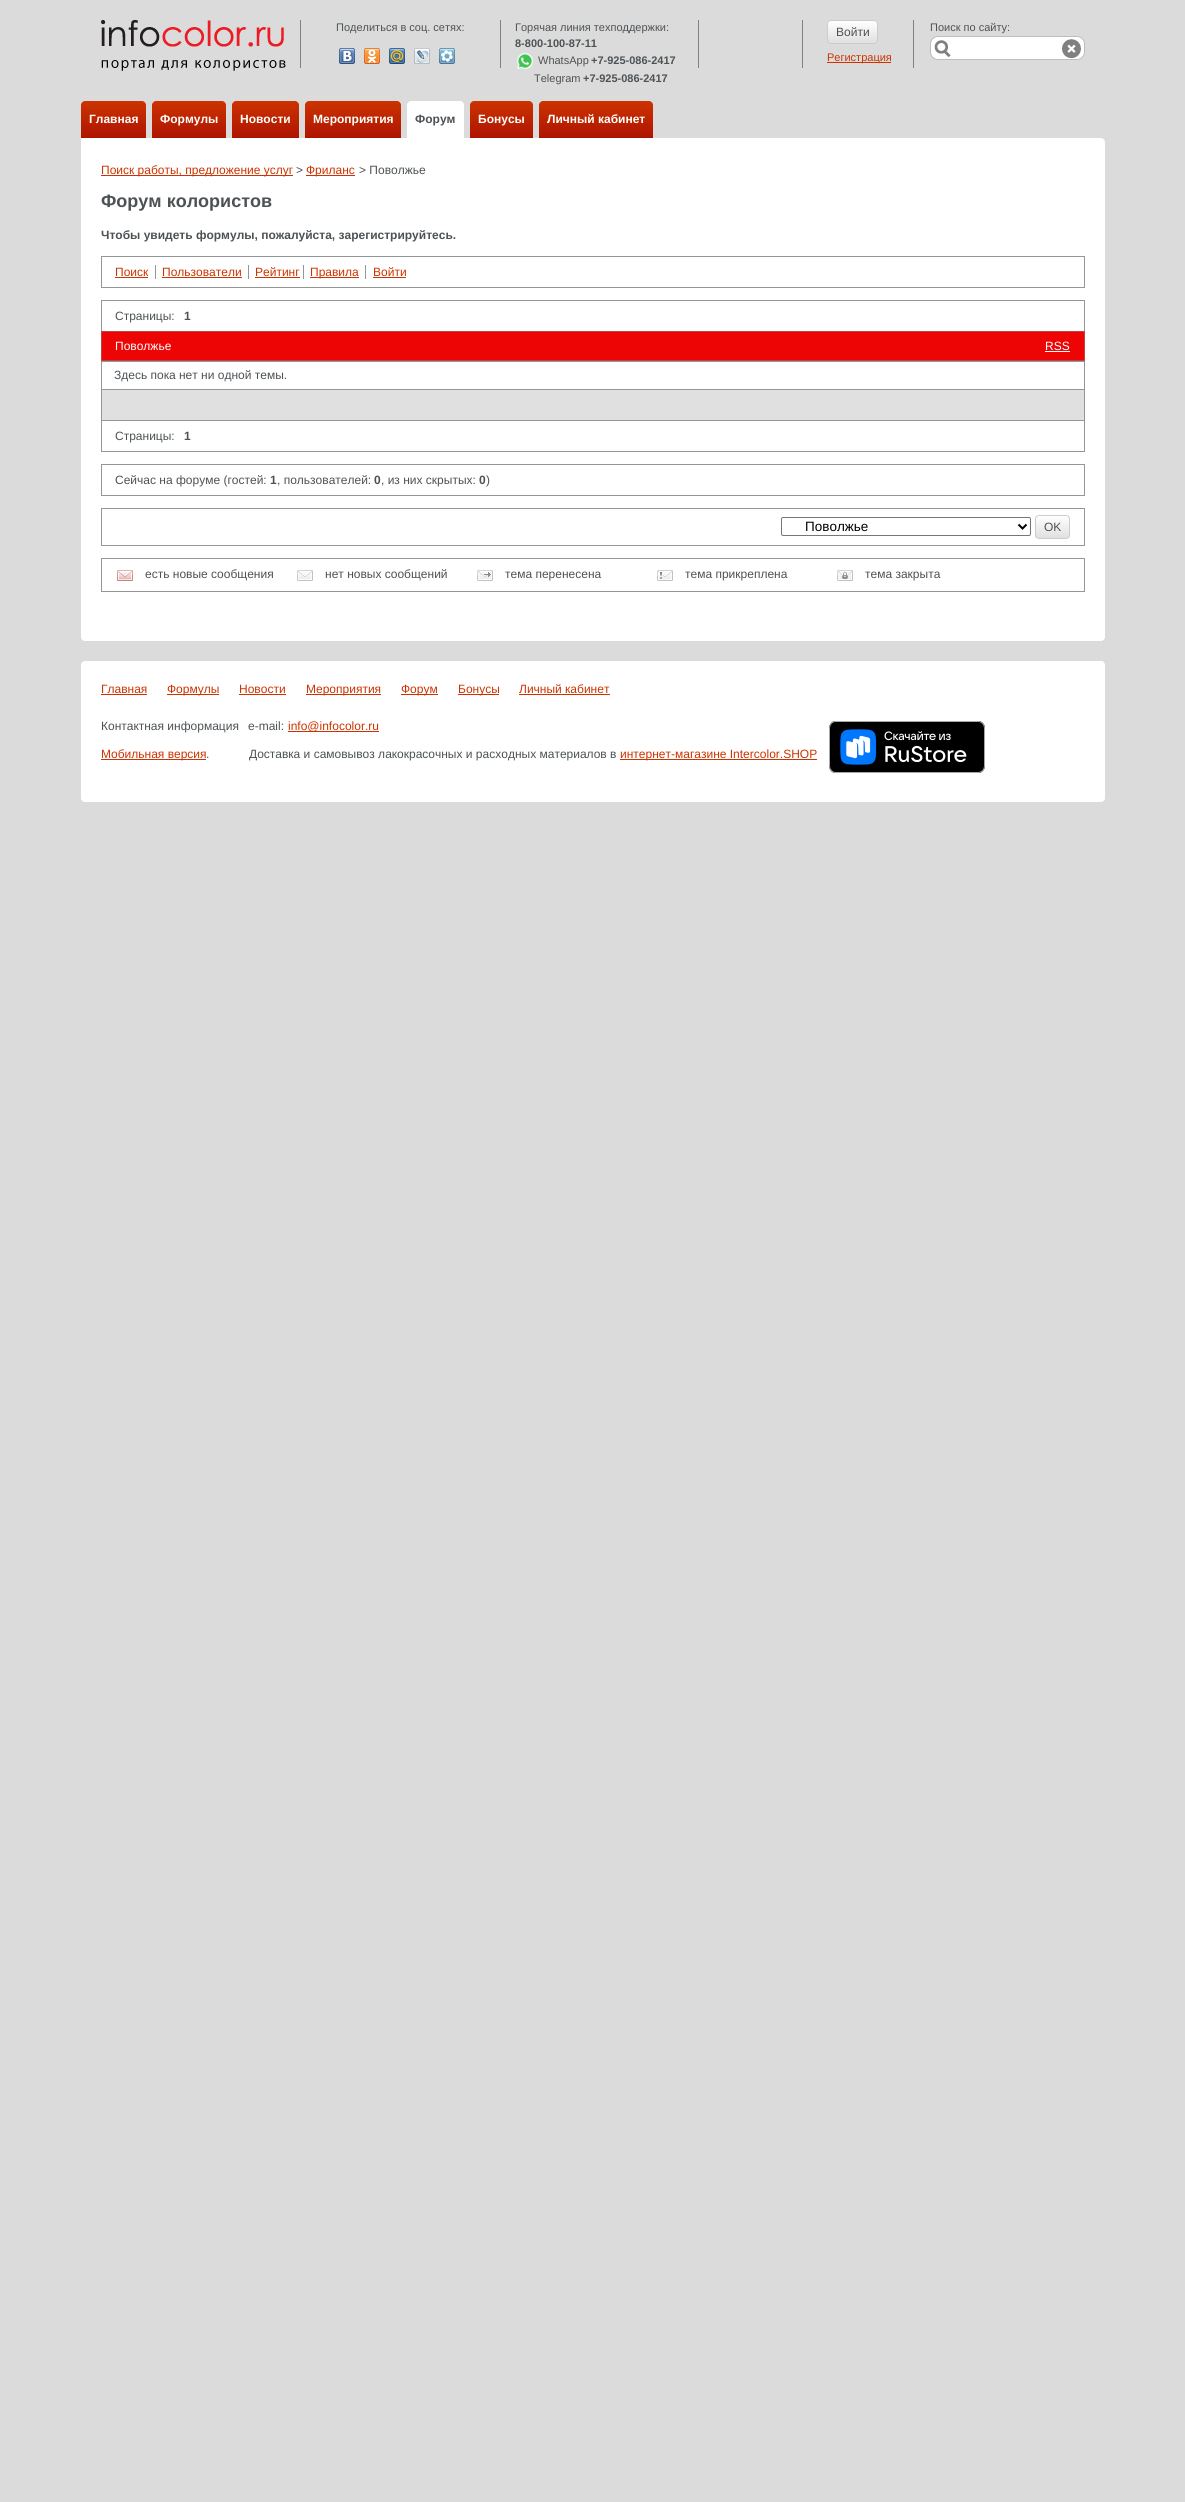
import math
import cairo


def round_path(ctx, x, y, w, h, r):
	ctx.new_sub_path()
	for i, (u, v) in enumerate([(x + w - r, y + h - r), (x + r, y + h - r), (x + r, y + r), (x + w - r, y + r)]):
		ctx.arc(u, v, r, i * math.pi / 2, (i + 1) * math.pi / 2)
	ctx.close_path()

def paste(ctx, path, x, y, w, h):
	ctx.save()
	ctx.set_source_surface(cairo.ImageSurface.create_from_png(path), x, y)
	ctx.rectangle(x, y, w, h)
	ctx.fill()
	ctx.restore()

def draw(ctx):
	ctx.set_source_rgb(0.859, 0.859, 0.859)
	ctx.paint()
	paste(ctx, 'media/1.png', 101, 20, 185, 51)
	ctx.set_source_rgb(0.506, 0.506, 0.506)
	ctx.rectangle(300, 20, 1, 48)
	ctx.fill()
	ctx.select_font_face('Liberation Sans')
	ctx.set_font_size(11)
	ctx.set_source_rgb(0.302, 0.322, 0.333)
	ctx.move_to(336, 31)
	ctx.show_text('Поделиться в соц. сетях:')
	paste(ctx, 'media/2.png', 339, 48, 16, 16)
	paste(ctx, 'media/3.png', 364, 48, 16, 16)
	paste(ctx, 'media/4.png', 389, 48, 16, 16)
	paste(ctx, 'media/5.png', 414, 48, 16, 16)
	paste(ctx, 'media/6.png', 439, 48, 16, 16)
	ctx.set_source_rgb(0.506, 0.506, 0.506)
	ctx.rectangle(500, 20, 1, 48)
	ctx.fill()
	ctx.set_source_rgb(0.302, 0.322, 0.333)
	ctx.move_to(515, 31)
	ctx.show_text('Горячая линия техподдержки:')
	ctx.select_font_face('Liberation Sans', cairo.FONT_SLANT_NORMAL, cairo.FONT_WEIGHT_BOLD)
	ctx.move_to(515, 47)
	ctx.show_text('8-800-100-87-11')
	paste(ctx, 'media/7.png', 517, 52, 17, 18)
	ctx.select_font_face('Liberation Sans')
	ctx.move_to(538, 64)
	ctx.show_text('WhatsApp')
	ctx.select_font_face('Liberation Sans', cairo.FONT_SLANT_NORMAL, cairo.FONT_WEIGHT_BOLD)
	ctx.move_to(591, 64)
	ctx.show_text('+7-925-086-2417')
	ctx.select_font_face('Liberation Sans')
	ctx.move_to(534, 82)
	ctx.show_text('Telegram')
	ctx.select_font_face('Liberation Sans', cairo.FONT_SLANT_NORMAL, cairo.FONT_WEIGHT_BOLD)
	ctx.move_to(583, 82)
	ctx.show_text('+7-925-086-2417')
	ctx.set_source_rgb(0.506, 0.506, 0.506)
	ctx.rectangle(698, 20, 1, 48)
	ctx.rectangle(913, 20, 1, 48)
	ctx.rectangle(802, 20, 1, 48)
	ctx.fill()
	ctx.save()
	round_path(ctx, 827, 20, 51, 24, 4)
	ctx.clip()
	gradient = cairo.LinearGradient(853, 21, 853, 43)
	gradient.add_color_stop_rgba(0, 1, 1, 1, 1)
	gradient.add_color_stop_rgba(1, 0.878, 0.878, 0.878, 1)
	ctx.set_source(gradient)
	ctx.rectangle(827, 21, 51, 22)
	ctx.fill()
	ctx.restore()
	round_path(ctx, 827.5, 20.5, 50, 23, 3.5)
	ctx.set_source_rgb(0.8, 0.8, 0.8)
	ctx.set_line_width(1)
	ctx.stroke()
	ctx.select_font_face('Liberation Sans')
	ctx.set_font_size(12)
	ctx.set_source_rgb(0.302, 0.322, 0.333)
	ctx.move_to(836, 36)
	ctx.show_text('Войти')
	ctx.set_source_rgb(0.8, 0.2, 0)
	ctx.rectangle(827, 62, 64, 1)
	ctx.fill()
	ctx.set_font_size(11)
	ctx.move_to(827, 61)
	ctx.show_text('Регистрация')
	ctx.set_source_rgb(0.302, 0.322, 0.333)
	ctx.move_to(930, 31)
	ctx.show_text('Поиск по сайту:')
	ctx.set_source_rgb(1, 1, 1)
	round_path(ctx, 930.5, 36.5, 154, 23, 7.5)
	ctx.fill_preserve()
	ctx.set_source_rgb(0.741, 0.741, 0.741)
	ctx.stroke()
	paste(ctx, 'media/8.png', 934, 40, 17, 17)
	paste(ctx, 'media/9.png', 1062, 39, 19, 19)
	gradient = cairo.LinearGradient(114, 101, 114, 138)
	gradient.add_color_stop_rgba(0, 0.8, 0.2, 0, 1)
	gradient.add_color_stop_rgba(1, 0.682, 0.082, 0, 1)
	ctx.set_source(gradient)
	ctx.new_path()
	ctx.move_to(85, 101)
	ctx.line_to(142, 101)
	ctx.curve_to(144, 101, 146, 103, 146, 105)
	ctx.line_to(146, 138)
	ctx.line_to(81, 138)
	ctx.line_to(81, 105)
	ctx.curve_to(81, 103, 83, 101, 85, 101)
	ctx.close_path()
	ctx.fill()
	ctx.select_font_face('Liberation Sans', cairo.FONT_SLANT_NORMAL, cairo.FONT_WEIGHT_BOLD)
	ctx.set_font_size(12)
	ctx.set_source_rgb(1, 1, 1)
	ctx.move_to(89, 123)
	ctx.show_text('Главная')
	gradient = cairo.LinearGradient(189, 101, 189, 138)
	gradient.add_color_stop_rgba(0, 0.8, 0.2, 0, 1)
	gradient.add_color_stop_rgba(1, 0.682, 0.082, 0, 1)
	ctx.set_source(gradient)
	ctx.new_path()
	ctx.move_to(156, 101)
	ctx.line_to(222, 101)
	ctx.curve_to(224, 101, 226, 103, 226, 105)
	ctx.line_to(226, 138)
	ctx.line_to(152, 138)
	ctx.line_to(152, 105)
	ctx.curve_to(152, 103, 154, 101, 156, 101)
	ctx.close_path()
	ctx.fill()
	ctx.set_source_rgb(1, 1, 1)
	ctx.move_to(160, 123)
	ctx.show_text('Формулы')
	gradient = cairo.LinearGradient(266, 101, 266, 138)
	gradient.add_color_stop_rgba(0, 0.8, 0.2, 0, 1)
	gradient.add_color_stop_rgba(1, 0.682, 0.082, 0, 1)
	ctx.set_source(gradient)
	ctx.new_path()
	ctx.move_to(236, 101)
	ctx.line_to(295, 101)
	ctx.curve_to(297, 101, 299, 103, 299, 105)
	ctx.line_to(299, 138)
	ctx.line_to(232, 138)
	ctx.line_to(232, 105)
	ctx.curve_to(232, 103, 234, 101, 236, 101)
	ctx.close_path()
	ctx.fill()
	ctx.set_source_rgb(1, 1, 1)
	ctx.move_to(240, 123)
	ctx.show_text('Новости')
	gradient = cairo.LinearGradient(353, 101, 353, 138)
	gradient.add_color_stop_rgba(0, 0.8, 0.2, 0, 1)
	gradient.add_color_stop_rgba(1, 0.682, 0.082, 0, 1)
	ctx.set_source(gradient)
	ctx.new_path()
	ctx.move_to(309, 101)
	ctx.line_to(397, 101)
	ctx.curve_to(399, 101, 401, 103, 401, 105)
	ctx.line_to(401, 138)
	ctx.line_to(305, 138)
	ctx.line_to(305, 105)
	ctx.curve_to(305, 103, 307, 101, 309, 101)
	ctx.close_path()
	ctx.fill()
	ctx.set_source_rgb(1, 1, 1)
	ctx.move_to(313, 123)
	ctx.show_text('Мероприятия')
	ctx.new_path()
	ctx.move_to(411, 101)
	ctx.line_to(460, 101)
	ctx.curve_to(462, 101, 464, 103, 464, 105)
	ctx.line_to(464, 138)
	ctx.line_to(407, 138)
	ctx.line_to(407, 105)
	ctx.curve_to(407, 103, 409, 101, 411, 101)
	ctx.close_path()
	ctx.fill()
	ctx.set_source_rgb(0.302, 0.322, 0.333)
	ctx.move_to(415, 123)
	ctx.show_text('Форум')
	gradient = cairo.LinearGradient(502, 101, 502, 138)
	gradient.add_color_stop_rgba(0, 0.8, 0.2, 0, 1)
	gradient.add_color_stop_rgba(1, 0.682, 0.082, 0, 1)
	ctx.set_source(gradient)
	ctx.new_path()
	ctx.move_to(474, 101)
	ctx.line_to(529, 101)
	ctx.curve_to(531, 101, 533, 103, 533, 105)
	ctx.line_to(533, 138)
	ctx.line_to(470, 138)
	ctx.line_to(470, 105)
	ctx.curve_to(470, 103, 472, 101, 474, 101)
	ctx.close_path()
	ctx.fill()
	ctx.set_source_rgb(1, 1, 1)
	ctx.move_to(478, 123)
	ctx.show_text('Бонусы')
	gradient = cairo.LinearGradient(596, 101, 596, 138)
	gradient.add_color_stop_rgba(0, 0.8, 0.2, 0, 1)
	gradient.add_color_stop_rgba(1, 0.682, 0.082, 0, 1)
	ctx.set_source(gradient)
	ctx.new_path()
	ctx.move_to(543, 101)
	ctx.line_to(649, 101)
	ctx.curve_to(651, 101, 653, 103, 653, 105)
	ctx.line_to(653, 138)
	ctx.line_to(539, 138)
	ctx.line_to(539, 105)
	ctx.curve_to(539, 103, 541, 101, 543, 101)
	ctx.close_path()
	ctx.fill()
	ctx.set_source_rgb(1, 1, 1)
	ctx.move_to(547, 123)
	ctx.show_text('Личный кабинет')
	ctx.new_path()
	ctx.move_to(81, 138)
	ctx.line_to(1101, 138)
	ctx.curve_to(1103, 138, 1105, 140, 1105, 142)
	ctx.line_to(1105, 637)
	ctx.curve_to(1105, 639, 1103, 641, 1101, 641)
	ctx.line_to(85, 641)
	ctx.curve_to(83, 641, 81, 639, 81, 637)
	ctx.close_path()
	ctx.fill()
	ctx.set_source_rgb(0.8, 0.2, 0)
	ctx.rectangle(101, 175, 192, 1)
	ctx.fill()
	ctx.select_font_face('Liberation Sans')
	ctx.move_to(101, 174)
	ctx.show_text('Поиск работы, предложение услуг')
	ctx.set_source_rgb(0.302, 0.322, 0.333)
	ctx.move_to(296, 174)
	ctx.show_text('>')
	ctx.set_source_rgb(0.8, 0.2, 0)
	ctx.rectangle(306, 175, 49, 1)
	ctx.fill()
	ctx.move_to(306, 174)
	ctx.show_text('Фриланс')
	ctx.set_source_rgb(0.302, 0.322, 0.333)
	ctx.move_to(359, 174)
	ctx.show_text('> Поволжье')
	ctx.select_font_face('Liberation Sans', cairo.FONT_SLANT_NORMAL, cairo.FONT_WEIGHT_BOLD)
	ctx.set_font_size(18)
	ctx.move_to(101, 207)
	ctx.show_text('Форум колористов')
	ctx.set_font_size(12)
	ctx.move_to(101, 239)
	ctx.show_text('Чтобы увидеть формулы, пожалуйста, зарегистрируйтесь.')
	ctx.rectangle(101.5, 256.5, 983, 31)
	ctx.set_source_rgb(0.588, 0.588, 0.588)
	ctx.stroke()
	ctx.select_font_face('Liberation Sans')
	ctx.set_source_rgb(0.8, 0.2, 0)
	ctx.move_to(115, 276)
	ctx.show_text('Поиск')
	ctx.set_source_rgb(0.588, 0.588, 0.588)
	ctx.rectangle(155, 265, 1, 14)
	ctx.fill()
	ctx.set_source_rgb(0.8, 0.2, 0)
	ctx.rectangle(115, 277, 33, 1)
	ctx.fill()
	ctx.move_to(162, 276)
	ctx.show_text('Пользователи')
	ctx.set_source_rgb(0.588, 0.588, 0.588)
	ctx.rectangle(248, 265, 1, 14)
	ctx.fill()
	ctx.set_source_rgb(0.8, 0.2, 0)
	ctx.rectangle(162, 277, 80, 1)
	ctx.fill()
	ctx.move_to(255, 276)
	ctx.show_text('Рейтинг')
	ctx.set_source_rgb(0.588, 0.588, 0.588)
	ctx.rectangle(303, 265, 1, 14)
	ctx.fill()
	ctx.set_source_rgb(0.8, 0.2, 0)
	ctx.rectangle(255, 277, 45, 1)
	ctx.rectangle(310, 277, 49, 1)
	ctx.fill()
	ctx.move_to(310, 276)
	ctx.show_text('Правила')
	ctx.set_source_rgb(0.588, 0.588, 0.588)
	ctx.rectangle(365, 265, 1, 14)
	ctx.fill()
	ctx.set_source_rgb(0.8, 0.2, 0)
	ctx.move_to(373, 276)
	ctx.show_text('Войти')
	ctx.rectangle(373, 277, 33, 1)
	ctx.fill()
	ctx.set_source_rgb(0.588, 0.588, 0.588)
	ctx.rectangle(101, 300, 984, 1)
	ctx.rectangle(1084, 300, 1, 31)
	ctx.rectangle(101, 300, 1, 31)
	ctx.fill()
	ctx.set_source_rgb(0.302, 0.322, 0.333)
	ctx.move_to(115, 320)
	ctx.show_text('Страницы:')
	ctx.select_font_face('Liberation Sans', cairo.FONT_SLANT_NORMAL, cairo.FONT_WEIGHT_BOLD)
	ctx.move_to(184, 320)
	ctx.show_text('1')
	ctx.set_source_rgb(0.929, 0.02, 0.02)
	ctx.rectangle(101.5, 331.5, 983, 29)
	ctx.fill_preserve()
	ctx.set_source_rgb(0.757, 0.259, 0.259)
	ctx.stroke()
	ctx.select_font_face('Liberation Sans')
	ctx.set_source_rgb(1, 1, 1)
	ctx.move_to(115, 350)
	ctx.show_text('Поволжье')
	ctx.move_to(1045, 350)
	ctx.show_text('RSS')
	ctx.rectangle(1045, 351, 25, 1)
	ctx.fill()
	ctx.set_source_rgb(0.588, 0.588, 0.588)
	ctx.rectangle(101, 361, 984, 1)
	ctx.rectangle(1084, 389, 1, 63)
	ctx.rectangle(1084, 361, 1, 29)
	ctx.rectangle(101, 420, 984, 1)
	ctx.rectangle(101, 389, 1, 32)
	ctx.rectangle(101, 389, 984, 1)
	ctx.rectangle(101, 361, 1, 29)
	ctx.fill()
	ctx.set_source_rgb(0.302, 0.322, 0.333)
	ctx.move_to(114, 379)
	ctx.show_text('Здесь пока нет ни одной темы.')
	ctx.set_source_rgb(0.878, 0.878, 0.878)
	ctx.rectangle(102, 390, 982, 30)
	ctx.fill()
	ctx.set_source_rgb(0.588, 0.588, 0.588)
	ctx.rectangle(101, 451, 984, 1)
	ctx.rectangle(101, 421, 1, 31)
	ctx.fill()
	ctx.set_source_rgb(0.302, 0.322, 0.333)
	ctx.move_to(115, 440)
	ctx.show_text('Страницы:')
	ctx.select_font_face('Liberation Sans', cairo.FONT_SLANT_NORMAL, cairo.FONT_WEIGHT_BOLD)
	ctx.move_to(184, 440)
	ctx.show_text('1')
	ctx.rectangle(101.5, 464.5, 983, 31)
	ctx.set_source_rgb(0.588, 0.588, 0.588)
	ctx.stroke()
	ctx.select_font_face('Liberation Sans')
	ctx.set_source_rgb(0.302, 0.322, 0.333)
	ctx.move_to(115, 484)
	ctx.show_text('Сейчас на форуме (гостей:')
	ctx.select_font_face('Liberation Sans', cairo.FONT_SLANT_NORMAL, cairo.FONT_WEIGHT_BOLD)
	ctx.move_to(270, 484)
	ctx.show_text('1')
	ctx.select_font_face('Liberation Sans')
	ctx.move_to(277, 484)
	ctx.show_text(', пользователей:')
	ctx.select_font_face('Liberation Sans', cairo.FONT_SLANT_NORMAL, cairo.FONT_WEIGHT_BOLD)
	ctx.move_to(374, 484)
	ctx.show_text('0')
	ctx.select_font_face('Liberation Sans')
	ctx.move_to(381, 484)
	ctx.show_text(', из них скрытых:')
	ctx.select_font_face('Liberation Sans', cairo.FONT_SLANT_NORMAL, cairo.FONT_WEIGHT_BOLD)
	ctx.move_to(479, 484)
	ctx.show_text('0')
	ctx.select_font_face('Liberation Sans')
	ctx.move_to(486, 484)
	ctx.show_text(')')
	ctx.rectangle(101.5, 508.5, 983, 37)
	ctx.set_source_rgb(0.588, 0.588, 0.588)
	ctx.stroke()
	round_path(ctx, 781.5, 517.5, 249, 18, 1.5)
	ctx.set_source_rgb(0.463, 0.463, 0.463)
	ctx.stroke()
	ctx.new_path()
	ctx.move_to(1018.5, 524.5)
	ctx.line_to(1022.5, 528.5)
	ctx.line_to(1026.5, 524.5)
	ctx.set_source_rgb(0, 0, 0)
	ctx.set_line_width(2)
	ctx.stroke()
	ctx.set_font_size(13.5)
	ctx.move_to(805, 531)
	ctx.show_text('Поволжье')
	ctx.save()
	round_path(ctx, 1035, 515, 35, 24, 4)
	ctx.clip()
	gradient = cairo.LinearGradient(1053, 516, 1053, 538)
	gradient.add_color_stop_rgba(0, 1, 1, 1, 1)
	gradient.add_color_stop_rgba(1, 0.878, 0.878, 0.878, 1)
	ctx.set_source(gradient)
	ctx.rectangle(1035, 516, 35, 22)
	ctx.fill()
	ctx.restore()
	round_path(ctx, 1035.5, 515.5, 34, 23, 3.5)
	ctx.set_source_rgb(0.8, 0.8, 0.8)
	ctx.set_line_width(1)
	ctx.stroke()
	ctx.set_font_size(12)
	ctx.set_source_rgb(0.302, 0.322, 0.333)
	ctx.move_to(1044, 531)
	ctx.show_text('OK')
	ctx.rectangle(101.5, 558.5, 983, 33)
	ctx.set_source_rgb(0.588, 0.588, 0.588)
	ctx.stroke()
	paste(ctx, 'media/10.png', 117, 570, 16, 11)
	ctx.set_source_rgb(0.302, 0.322, 0.333)
	ctx.move_to(145, 578)
	ctx.show_text('есть новые сообщения')
	paste(ctx, 'media/11.png', 297, 570, 16, 11)
	ctx.move_to(325, 578)
	ctx.show_text('нет новых сообщений')
	paste(ctx, 'media/12.png', 477, 570, 16, 11)
	ctx.move_to(505, 578)
	ctx.show_text('тема перенесена')
	paste(ctx, 'media/13.png', 657, 570, 16, 11)
	ctx.move_to(685, 578)
	ctx.show_text('тема прикреплена')
	paste(ctx, 'media/14.png', 837, 570, 16, 11)
	ctx.move_to(865, 578)
	ctx.show_text('тема закрыта')
	ctx.set_source_rgb(1, 1, 1)
	round_path(ctx, 81, 661, 1024, 141, 4)
	ctx.fill()
	ctx.set_source_rgb(0.8, 0.2, 0)
	ctx.move_to(101, 693)
	ctx.show_text('Главная')
	ctx.rectangle(101, 694, 46, 1)
	ctx.fill()
	ctx.rectangle(167, 694, 52, 1)
	ctx.fill()
	ctx.move_to(167, 693)
	ctx.show_text('Формулы')
	ctx.move_to(239, 693)
	ctx.show_text('Новости')
	ctx.rectangle(239, 694, 47, 1)
	ctx.fill()
	ctx.rectangle(306, 694, 75, 1)
	ctx.fill()
	ctx.move_to(306, 693)
	ctx.show_text('Мероприятия')
	ctx.rectangle(401, 694, 37, 1)
	ctx.fill()
	ctx.move_to(401, 693)
	ctx.show_text('Форум')
	ctx.rectangle(458, 694, 41, 1)
	ctx.fill()
	ctx.move_to(458, 693)
	ctx.show_text('Бонусы')
	ctx.move_to(519, 693)
	ctx.show_text('Личный кабинет')
	ctx.rectangle(519, 694, 91, 1)
	ctx.fill()
	ctx.set_source_rgb(0.302, 0.322, 0.333)
	ctx.move_to(101, 730)
	ctx.show_text('Контактная информация')
	ctx.move_to(248, 730)
	ctx.show_text('e-mail:')
	ctx.set_source_rgb(0.8, 0.2, 0)
	ctx.rectangle(288, 731, 91, 1)
	ctx.fill()
	ctx.move_to(288, 730)
	ctx.show_text('info@infocolor.ru')
	ctx.rectangle(101, 759, 105, 1)
	ctx.fill()
	ctx.move_to(101, 758)
	ctx.show_text('Мобильная версия')
	ctx.set_source_rgb(0.302, 0.322, 0.333)
	ctx.move_to(206, 758)
	ctx.show_text('.')
	ctx.move_to(249, 758)
	ctx.show_text('Доставка и самовывоз лакокрасочных и расходных материалов в')
	ctx.set_source_rgb(0.8, 0.2, 0)
	ctx.rectangle(620, 759, 197, 1)
	ctx.fill()
	ctx.move_to(620, 758)
	ctx.show_text('интернет-магазине Intercolor.SHOP')
	paste(ctx, 'media/15.png', 829, 721, 156, 52)


surface = cairo.ImageSurface(cairo.FORMAT_RGB24, 1185, 2502)
ctx = cairo.Context(surface)
options = cairo.FontOptions()
options.set_hint_metrics(cairo.HINT_METRICS_OFF)
options.set_hint_style(cairo.HINT_STYLE_NONE)
ctx.set_font_options(options)
ctx.set_miter_limit(4)
draw(ctx)
surface.write_to_png('image.png')
